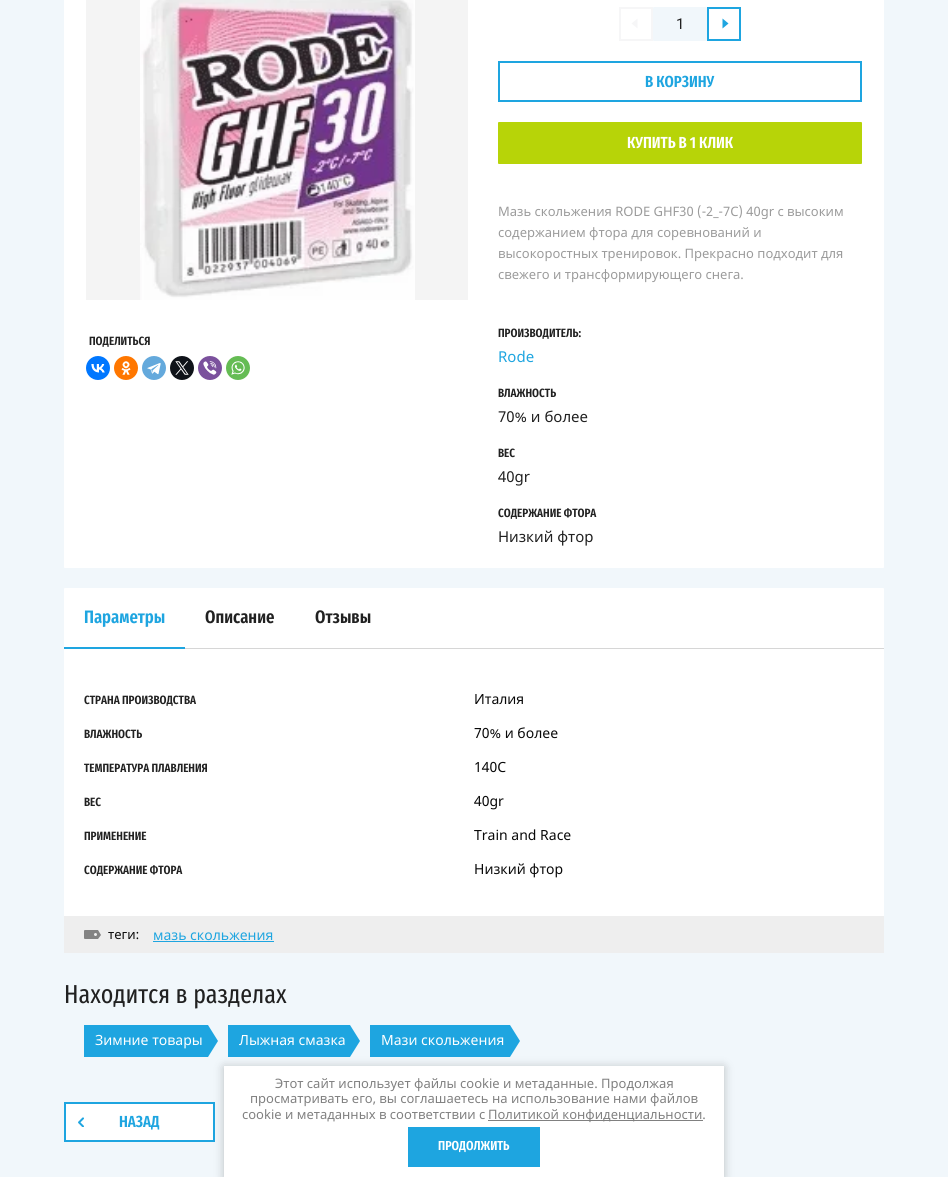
import math
import cairo


def round_path(ctx, x, y, w, h, r):
	ctx.new_sub_path()
	for i, (u, v) in enumerate([(x + w - r, y + h - r), (x + r, y + h - r), (x + r, y + r), (x + w - r, y + r)]):
		ctx.arc(u, v, r, i * math.pi / 2, (i + 1) * math.pi / 2)
	ctx.close_path()

def blur_box(ctx, x, y, w, h, r, blur, alpha):
	ctx.push_group_with_content(cairo.CONTENT_ALPHA)
	ctx.set_operator(cairo.OPERATOR_SOURCE)
	for i in range(15, -16, -2):
		e = blur * i / 6
		if min(w, h) + 2 * e > 0:
			ctx.set_source_rgba(0, 0, 0, alpha * math.erfc((i - 1) / 8.5) / 2)
			round_path(ctx, x - e, y - e, w + 2 * e, h + 2 * e, max(0, min(r + e + blur * .6, min(w, h) / 2 + e)))
			ctx.fill()
	ctx.mask(ctx.pop_group())

def paste(ctx, path, x, y, w, h):
	ctx.save()
	ctx.set_source_surface(cairo.ImageSurface.create_from_png(path), x, y)
	ctx.rectangle(x, y, w, h)
	ctx.fill()
	ctx.restore()

def draw(ctx):
	ctx.set_source_rgb(0.945, 0.965, 0.984)
	ctx.paint()
	ctx.set_source_rgb(1, 1, 1)
	round_path(ctx, 64, -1, 820, 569, 1)
	ctx.fill()
	ctx.set_source_rgb(0.957, 0.957, 0.957)
	ctx.rectangle(86, 0, 382, 300)
	ctx.fill()
	paste(ctx, 'media/1.png', 140, 0, 275, 300)
	ctx.select_font_face('Fira Sans Extra Condensed SemiBold')
	ctx.set_font_size(12)
	ctx.set_source_rgb(0.129, 0.129, 0.129)
	ctx.move_to(89, 345)
	ctx.show_text('ПОДЕЛИТЬСЯ')
	ctx.set_source_rgb(0, 0.467, 1)
	ctx.new_path()
	ctx.arc(98, 368, 12, 0, 2 * math.pi)
	ctx.fill()
	paste(ctx, 'media/2.png', 91, 364, 14, 9)
	ctx.set_source_rgb(1, 0.467, 0)
	ctx.arc(126, 368, 12, 0, 2 * math.pi)
	ctx.fill()
	paste(ctx, 'media/3.png', 121, 361, 10, 14)
	ctx.set_source_rgb(0.392, 0.663, 0.863)
	ctx.arc(154, 368, 12, 0, 2 * math.pi)
	ctx.fill()
	paste(ctx, 'media/4.png', 147, 363, 14, 12)
	ctx.set_source_rgb(0.059, 0.078, 0.098)
	ctx.arc(182, 368, 12, 0, 2 * math.pi)
	ctx.fill()
	paste(ctx, 'media/5.png', 175, 361, 14, 14)
	ctx.set_source_rgb(0.482, 0.318, 0.616)
	ctx.arc(210, 368, 12, 0, 2 * math.pi)
	ctx.fill()
	paste(ctx, 'media/6.png', 203, 361, 14, 14)
	ctx.set_source_rgb(0.396, 0.737, 0.329)
	ctx.arc(238, 368, 12, 0, 2 * math.pi)
	ctx.fill()
	paste(ctx, 'media/7.png', 231, 361, 14, 14)
	ctx.rectangle(620, 8, 32, 32)
	ctx.set_source_rgb(0.961, 0.961, 0.965)
	ctx.stroke()
	ctx.new_path()
	ctx.move_to(631.5, 23.5)
	ctx.line_to(637.5, 18.5)
	ctx.line_to(637.5, 28.5)
	ctx.close_path()
	ctx.fill()
	ctx.set_source_rgb(0.945, 0.965, 0.984)
	round_path(ctx, 653, 7, 54, 34, 1)
	ctx.fill()
	ctx.select_font_face('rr')
	ctx.set_font_size(15)
	ctx.set_source_rgb(0.129, 0.129, 0.129)
	ctx.move_to(676, 29)
	ctx.show_text('1')
	ctx.rectangle(708, 8, 32, 32)
	ctx.set_source_rgb(0.118, 0.647, 0.878)
	ctx.stroke()
	ctx.new_path()
	ctx.move_to(728.5, 23.5)
	ctx.line_to(722.5, 28.5)
	ctx.line_to(722.5, 18.5)
	ctx.close_path()
	ctx.fill()
	ctx.rectangle(499, 62, 362, 39)
	ctx.stroke()
	ctx.select_font_face('Fira Sans Extra Condensed SemiBold')
	ctx.set_font_size(16)
	ctx.move_to(645, 87)
	ctx.show_text('В КОРЗИНУ')
	ctx.set_source_rgb(0.718, 0.831, 0.035)
	round_path(ctx, 498, 122, 364, 42, 1)
	ctx.fill()
	ctx.set_source_rgb(1, 1, 1)
	ctx.move_to(627, 148)
	ctx.show_text('КУПИТЬ В 1 КЛИК')
	ctx.select_font_face('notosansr')
	ctx.set_font_size(13)
	ctx.set_source_rgb(0.608, 0.608, 0.608)
	for x, y, s in [
		(498, 216, 'Мазь скольжения RODE GHF30 (-2_-7C) 40gr с высоким'),
		(498, 237, 'содержанием фтора для соревнований и'),
		(498, 258, 'высокоростных тренировок. Прекрасно подходит для'),
		(498, 279, 'свежего и трансформирующего снега.'),
	]:
		ctx.move_to(x, y)
		ctx.show_text(s)
	ctx.select_font_face('Fira Sans Extra Condensed SemiBold')
	ctx.set_font_size(12)
	ctx.set_source_rgb(0.129, 0.129, 0.129)
	ctx.move_to(498, 337)
	ctx.show_text('ПРОИЗВОДИТЕЛЬ:')
	ctx.select_font_face('notosansr')
	ctx.set_font_size(15)
	ctx.set_source_rgb(0.118, 0.647, 0.878)
	ctx.move_to(498, 362)
	ctx.show_text('Rode')
	ctx.select_font_face('Fira Sans Extra Condensed SemiBold')
	ctx.set_font_size(12)
	ctx.set_source_rgb(0.129, 0.129, 0.129)
	ctx.move_to(498, 397)
	ctx.show_text('ВЛАЖНОСТЬ')
	ctx.select_font_face('notosansr')
	ctx.set_font_size(15)
	ctx.move_to(498, 422)
	ctx.show_text('70% и более')
	ctx.select_font_face('Fira Sans Extra Condensed SemiBold')
	ctx.set_font_size(12)
	ctx.move_to(498, 457)
	ctx.show_text('ВЕС')
	ctx.select_font_face('notosansr')
	ctx.set_font_size(15)
	ctx.move_to(498, 482)
	ctx.show_text('40gr')
	ctx.select_font_face('Fira Sans Extra Condensed SemiBold')
	ctx.set_font_size(12)
	ctx.move_to(498, 517)
	ctx.show_text('СОДЕРЖАНИЕ ФТОРА')
	ctx.select_font_face('notosansr')
	ctx.set_font_size(15)
	ctx.move_to(498, 542)
	ctx.show_text('Низкий фтор')
	ctx.set_source_rgb(1, 1, 1)
	round_path(ctx, 64, 588, 820, 365, 1)
	ctx.fill()
	ctx.set_source_rgb(0.839, 0.839, 0.839)
	ctx.rectangle(185, 648, 699, 1)
	ctx.fill()
	ctx.select_font_face('Fira Sans Extra Condensed SemiBold')
	ctx.set_font_size(18)
	ctx.set_source_rgb(0.118, 0.647, 0.878)
	ctx.move_to(84, 623)
	ctx.show_text('Параметры')
	ctx.rectangle(64, 647, 121, 2)
	ctx.fill()
	ctx.set_source_rgb(0.129, 0.129, 0.129)
	ctx.move_to(205, 623)
	ctx.show_text('Описание')
	ctx.move_to(315, 623)
	ctx.show_text('Отзывы')
	ctx.set_font_size(12)
	ctx.move_to(84, 704)
	ctx.show_text('СТРАНА ПРОИЗВОДСТВА')
	ctx.select_font_face('notosansr')
	ctx.set_font_size(14)
	ctx.set_source_rgb(0.039, 0.039, 0.039)
	ctx.move_to(474, 704)
	ctx.show_text('Италия')
	ctx.select_font_face('Fira Sans Extra Condensed SemiBold')
	ctx.set_font_size(12)
	ctx.set_source_rgb(0.129, 0.129, 0.129)
	ctx.move_to(84, 738)
	ctx.show_text('ВЛАЖНОСТЬ')
	ctx.select_font_face('notosansr')
	ctx.set_font_size(14)
	ctx.set_source_rgb(0.039, 0.039, 0.039)
	ctx.move_to(474, 738)
	ctx.show_text('70% и более')
	ctx.select_font_face('Fira Sans Extra Condensed SemiBold')
	ctx.set_font_size(12)
	ctx.set_source_rgb(0.129, 0.129, 0.129)
	ctx.move_to(84, 772)
	ctx.show_text('ТЕМПЕРАТУРА ПЛАВЛЕНИЯ')
	ctx.select_font_face('notosansr')
	ctx.set_font_size(14)
	ctx.set_source_rgb(0.039, 0.039, 0.039)
	ctx.move_to(474, 772)
	ctx.show_text('140С')
	ctx.select_font_face('Fira Sans Extra Condensed SemiBold')
	ctx.set_font_size(12)
	ctx.set_source_rgb(0.129, 0.129, 0.129)
	ctx.move_to(84, 806)
	ctx.show_text('ВЕС')
	ctx.select_font_face('notosansr')
	ctx.set_font_size(14)
	ctx.set_source_rgb(0.039, 0.039, 0.039)
	ctx.move_to(474, 806)
	ctx.show_text('40gr')
	ctx.select_font_face('Fira Sans Extra Condensed SemiBold')
	ctx.set_font_size(12)
	ctx.set_source_rgb(0.129, 0.129, 0.129)
	ctx.move_to(84, 840)
	ctx.show_text('ПРИМЕНЕНИЕ')
	ctx.select_font_face('notosansr')
	ctx.set_font_size(14)
	ctx.set_source_rgb(0.039, 0.039, 0.039)
	ctx.move_to(474, 840)
	ctx.show_text('Train and Race')
	ctx.select_font_face('Fira Sans Extra Condensed SemiBold')
	ctx.set_font_size(12)
	ctx.set_source_rgb(0.129, 0.129, 0.129)
	ctx.move_to(84, 874)
	ctx.show_text('СОДЕРЖАНИЕ ФТОРА')
	ctx.select_font_face('notosansr')
	ctx.set_font_size(14)
	ctx.set_source_rgb(0.039, 0.039, 0.039)
	ctx.move_to(474, 874)
	ctx.show_text('Низкий фтор')
	ctx.set_source_rgb(0.933, 0.933, 0.933)
	ctx.rectangle(64, 916, 820, 37)
	ctx.fill()
	paste(ctx, 'media/8.png', 84, 930, 17, 9)
	ctx.set_font_size(13)
	ctx.set_source_rgb(0.039, 0.039, 0.039)
	ctx.move_to(108, 939)
	ctx.show_text('теги:')
	ctx.set_font_size(14)
	ctx.set_source_rgb(0.118, 0.647, 0.878)
	ctx.move_to(153, 940)
	ctx.show_text('мазь скольжения')
	ctx.rectangle(153, 941, 121, 1)
	ctx.fill()
	ctx.select_font_face('Fira Sans Extra Condensed')
	ctx.set_font_size(26)
	ctx.set_source_rgb(0.129, 0.129, 0.129)
	ctx.move_to(64, 1003)
	ctx.show_text('Находится в разделах')
	ctx.set_source_rgb(0.118, 0.647, 0.878)
	ctx.rectangle(84, 1025, 124, 32)
	ctx.fill()
	ctx.select_font_face('notosansr')
	ctx.set_font_size(14)
	ctx.set_source_rgb(1, 1, 1)
	ctx.move_to(95, 1045)
	ctx.show_text('Зимние товары')
	ctx.set_source_rgb(0.118, 0.647, 0.878)
	ctx.new_path()
	ctx.move_to(208, 1057)
	ctx.line_to(208, 1025)
	ctx.line_to(218, 1041)
	ctx.close_path()
	ctx.fill()
	ctx.rectangle(228, 1025, 122, 32)
	ctx.fill()
	ctx.set_source_rgb(1, 1, 1)
	ctx.move_to(239, 1045)
	ctx.show_text('Лыжная смазка')
	ctx.set_source_rgb(0.118, 0.647, 0.878)
	ctx.new_path()
	ctx.move_to(350, 1057)
	ctx.line_to(350, 1025)
	ctx.line_to(360, 1041)
	ctx.close_path()
	ctx.fill()
	ctx.rectangle(370, 1025, 140, 32)
	ctx.fill()
	ctx.set_source_rgb(1, 1, 1)
	ctx.move_to(381, 1045)
	ctx.show_text('Мази скольжения')
	ctx.set_source_rgb(0.118, 0.647, 0.878)
	ctx.new_path()
	ctx.move_to(510, 1057)
	ctx.line_to(510, 1025)
	ctx.line_to(520, 1041)
	ctx.close_path()
	ctx.fill()
	ctx.set_source_rgb(1, 1, 1)
	ctx.rectangle(65, 1103, 149, 38)
	ctx.fill_preserve()
	ctx.set_source_rgb(0.118, 0.647, 0.878)
	ctx.stroke()
	paste(ctx, 'media/9.png', 78, 1117, 6, 10)
	ctx.select_font_face('Fira Sans Extra Condensed SemiBold')
	ctx.set_font_size(16)
	ctx.move_to(119, 1127)
	ctx.show_text('НАЗАД')
	ctx.set_source_rgb(0, 0, 0)
	blur_box(ctx, 224, 1067, 500, 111, 0, 5, 0.23)
	ctx.set_source_rgb(1, 1, 1)
	ctx.rectangle(224, 1066, 500, 111)
	ctx.fill()
	ctx.select_font_face('notosansr')
	ctx.set_font_size(13)
	ctx.set_source_rgb(0.502, 0.502, 0.502)
	for x, y, s in [
		(275, 1088, 'Этот сайт использует файлы cookie и метаданные. Продолжая'),
		(250, 1103, 'просматривать его, вы соглашаетесь на использование нами файлов'),
		(242, 1119, 'cookie и метаданных в соответствии с'),
	]:
		ctx.move_to(x, y)
		ctx.show_text(s)
	ctx.rectangle(488, 1120, 215, 1)
	ctx.fill()
	ctx.move_to(488, 1119)
	ctx.show_text('Политикой конфиденциальности.')
	ctx.set_source_rgb(0.118, 0.647, 0.878)
	ctx.rectangle(408, 1127, 132, 40)
	ctx.fill()
	ctx.select_font_face('Fira Sans Extra Condensed SemiBold')
	ctx.set_source_rgb(1, 1, 1)
	ctx.move_to(438, 1150)
	ctx.show_text('ПРОДОЛЖИТЬ')


surface = cairo.ImageSurface(cairo.FORMAT_RGB24, 948, 1177)
ctx = cairo.Context(surface)
options = cairo.FontOptions()
options.set_hint_metrics(cairo.HINT_METRICS_OFF)
options.set_hint_style(cairo.HINT_STYLE_NONE)
ctx.set_font_options(options)
ctx.set_miter_limit(4)
draw(ctx)
surface.write_to_png('image.png')
